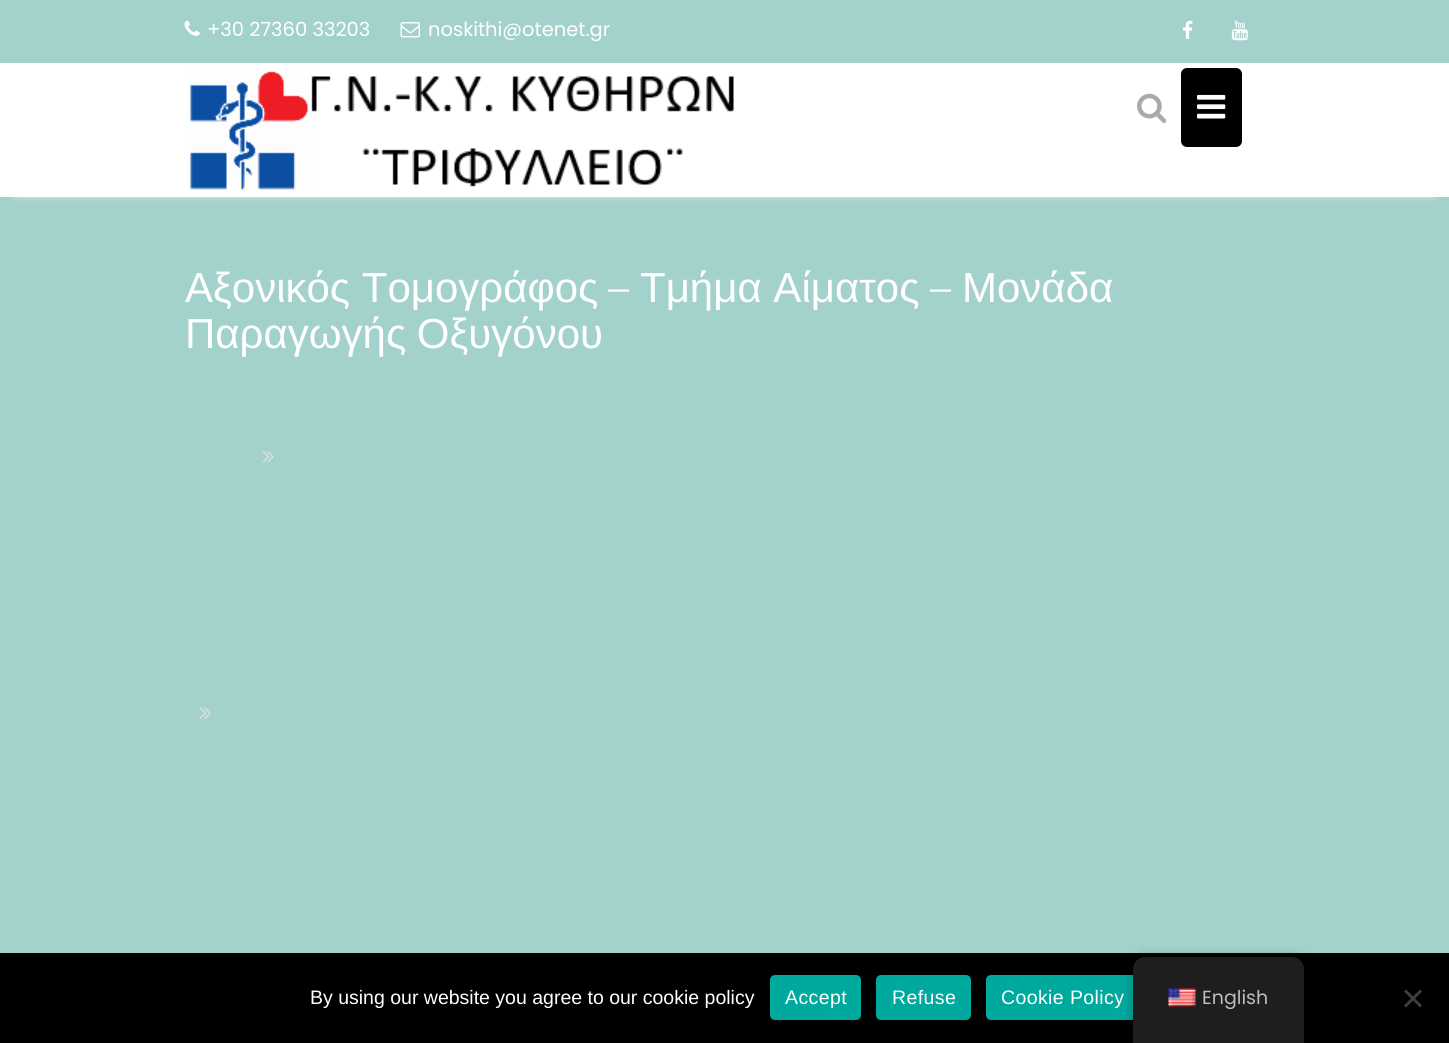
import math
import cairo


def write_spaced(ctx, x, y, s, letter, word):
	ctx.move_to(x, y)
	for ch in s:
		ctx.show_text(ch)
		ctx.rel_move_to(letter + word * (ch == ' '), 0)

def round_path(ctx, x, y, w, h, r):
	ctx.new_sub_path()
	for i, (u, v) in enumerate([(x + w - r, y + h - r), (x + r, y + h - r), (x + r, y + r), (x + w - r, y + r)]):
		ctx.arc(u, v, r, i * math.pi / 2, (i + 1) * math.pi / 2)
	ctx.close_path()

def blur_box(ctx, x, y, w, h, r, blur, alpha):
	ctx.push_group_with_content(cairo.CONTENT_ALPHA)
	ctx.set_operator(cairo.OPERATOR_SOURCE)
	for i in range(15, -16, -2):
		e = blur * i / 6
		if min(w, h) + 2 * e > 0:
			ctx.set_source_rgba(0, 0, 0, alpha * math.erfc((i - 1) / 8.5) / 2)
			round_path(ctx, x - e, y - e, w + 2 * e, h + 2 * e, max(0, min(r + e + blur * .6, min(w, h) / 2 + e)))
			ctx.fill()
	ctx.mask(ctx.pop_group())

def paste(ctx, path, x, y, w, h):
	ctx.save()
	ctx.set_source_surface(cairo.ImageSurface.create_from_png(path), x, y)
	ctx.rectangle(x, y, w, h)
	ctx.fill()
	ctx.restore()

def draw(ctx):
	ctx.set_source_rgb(1, 1, 1)
	ctx.paint()
	ctx.set_source_rgb(0.639, 0.82, 0.796)
	ctx.rectangle(0, 0, 1449, 63)
	ctx.fill()
	paste(ctx, 'media/1.png', 184, 20, 16, 16)
	ctx.select_font_face('Poppins')
	ctx.set_font_size(19.5)
	ctx.set_source_rgb(1, 1, 1)
	ctx.move_to(207, 36)
	ctx.show_text('+30 27360 33203')
	paste(ctx, 'media/2.png', 400, 22, 20, 16)
	ctx.move_to(428, 36)
	ctx.show_text('noskithi@otenet.gr')
	paste(ctx, 'media/3.png', 1183, 20, 10, 19)
	paste(ctx, 'media/4.png', 1231, 20, 17, 21)
	ctx.set_source_rgb(0.639, 0.82, 0.796)
	ctx.rectangle(0, 197, 1449, 756)
	ctx.fill()
	ctx.save()
	ctx.set_fill_rule(cairo.FILL_RULE_EVEN_ODD)
	ctx.new_path()
	ctx.move_to(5, 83)
	ctx.line_to(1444, 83)
	ctx.line_to(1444, 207)
	ctx.line_to(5, 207)
	ctx.close_path()
	ctx.move_to(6, 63)
	ctx.line_to(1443, 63)
	ctx.curve_to(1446.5, 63, 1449, 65.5, 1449, 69)
	ctx.line_to(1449, 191)
	ctx.curve_to(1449, 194.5, 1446.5, 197, 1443, 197)
	ctx.line_to(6, 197)
	ctx.curve_to(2.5, 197, 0, 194.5, 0, 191)
	ctx.line_to(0, 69)
	ctx.curve_to(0, 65.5, 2.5, 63, 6, 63)
	ctx.close_path()
	ctx.clip()
	ctx.set_source_rgb(0.933, 0.933, 0.933)
	blur_box(ctx, 15, 93, 1419, 104, 0, 3, 0.9)
	ctx.restore()
	paste(ctx, 'media/5.png', 190, 71, 544, 119)
	paste(ctx, 'media/6.png', 1137, 93, 30, 30)
	ctx.set_source_rgb(0, 0, 0)
	round_path(ctx, 1181, 68, 61, 79, 6)
	ctx.fill()
	paste(ctx, 'media/7.png', 1197, 94, 29, 25)
	ctx.select_font_face('Liberation Sans')
	ctx.set_font_size(42)
	ctx.set_source_rgb(1, 1, 1)
	ctx.move_to(185, 302)
	ctx.show_text('Αξονικός Τομογράφος')
	ctx.select_font_face('Montserrat')
	ctx.move_to(608, 302)
	ctx.show_text('–')
	ctx.select_font_face('Liberation Sans')
	ctx.move_to(640, 302)
	ctx.show_text('Τμήμα Αίματος')
	ctx.select_font_face('Montserrat')
	ctx.move_to(930, 302)
	ctx.show_text('–')
	ctx.select_font_face('Liberation Sans')
	ctx.move_to(962, 302)
	ctx.show_text('Μονάδα')
	write_spaced(ctx, 185, 348, 'Παραγωγής Οξυγόνου', 0, -1)
	paste(ctx, 'media/8.png', 262, 451, 12, 12)
	paste(ctx, 'media/9.png', 199, 707, 12, 12)
	ctx.set_source_rgb(0, 0, 0)
	ctx.rectangle(0, 953, 1449, 90)
	ctx.fill()
	ctx.set_font_size(19.5)
	ctx.set_source_rgb(1, 1, 1)
	ctx.move_to(310, 1004)
	ctx.show_text('By using our website you agree to our cookie policy')
	ctx.set_source_rgb(0, 0.663, 0.616)
	round_path(ctx, 770, 975, 91, 45, 5)
	ctx.fill()
	ctx.set_source_rgb(1, 1, 1)
	write_spaced(ctx, 785, 1004, 'Accept', 0.4, 0)
	ctx.set_source_rgb(0, 0.663, 0.616)
	round_path(ctx, 876, 975, 95, 45, 5)
	ctx.fill()
	ctx.set_source_rgb(1, 1, 1)
	write_spaced(ctx, 892, 1004, 'Refuse', 0.4, 0)
	ctx.set_source_rgb(0, 0.663, 0.616)
	round_path(ctx, 986, 975, 153, 45, 5)
	ctx.fill()
	ctx.set_source_rgb(1, 1, 1)
	write_spaced(ctx, 1001, 1004, 'Cookie Policy', 0.4, 0)
	ctx.set_source_rgb(0.251, 0.251, 0.251)
	ctx.new_path()
	ctx.move_to(1420, 989.5)
	ctx.line_to(1422, 991.5)
	ctx.line_to(1406, 1007.5)
	ctx.line_to(1404, 1005.5)
	ctx.close_path()
	ctx.fill()
	ctx.new_path()
	ctx.move_to(1404, 991.5)
	ctx.line_to(1406, 989.5)
	ctx.line_to(1422, 1005.5)
	ctx.line_to(1420, 1007.5)
	ctx.close_path()
	ctx.fill()
	ctx.set_source_rgb(0, 0, 0)
	blur_box(ctx, 1133, 957, 171, 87, 12, 6, 0.25)
	ctx.set_source_rgb(0.118, 0.118, 0.118)
	ctx.new_path()
	ctx.move_to(1145, 957)
	ctx.line_to(1292, 957)
	ctx.curve_to(1298.5, 957, 1304, 962.5, 1304, 969)
	ctx.line_to(1304, 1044)
	ctx.line_to(1133, 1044)
	ctx.line_to(1133, 969)
	ctx.curve_to(1133, 962.5, 1138.5, 957, 1145, 957)
	ctx.close_path()
	ctx.fill()
	paste(ctx, 'media/10.png', 1168, 988, 28, 19)
	ctx.select_font_face('Poppins')
	ctx.set_font_size(19)
	ctx.set_source_rgb(0.741, 0.741, 0.741)
	ctx.move_to(1202, 1004)
	ctx.show_text('English')


surface = cairo.ImageSurface(cairo.FORMAT_RGB24, 1449, 1043)
ctx = cairo.Context(surface)
options = cairo.FontOptions()
options.set_hint_metrics(cairo.HINT_METRICS_OFF)
options.set_hint_style(cairo.HINT_STYLE_NONE)
ctx.set_font_options(options)
ctx.set_miter_limit(4)
draw(ctx)
surface.write_to_png('image.png')
